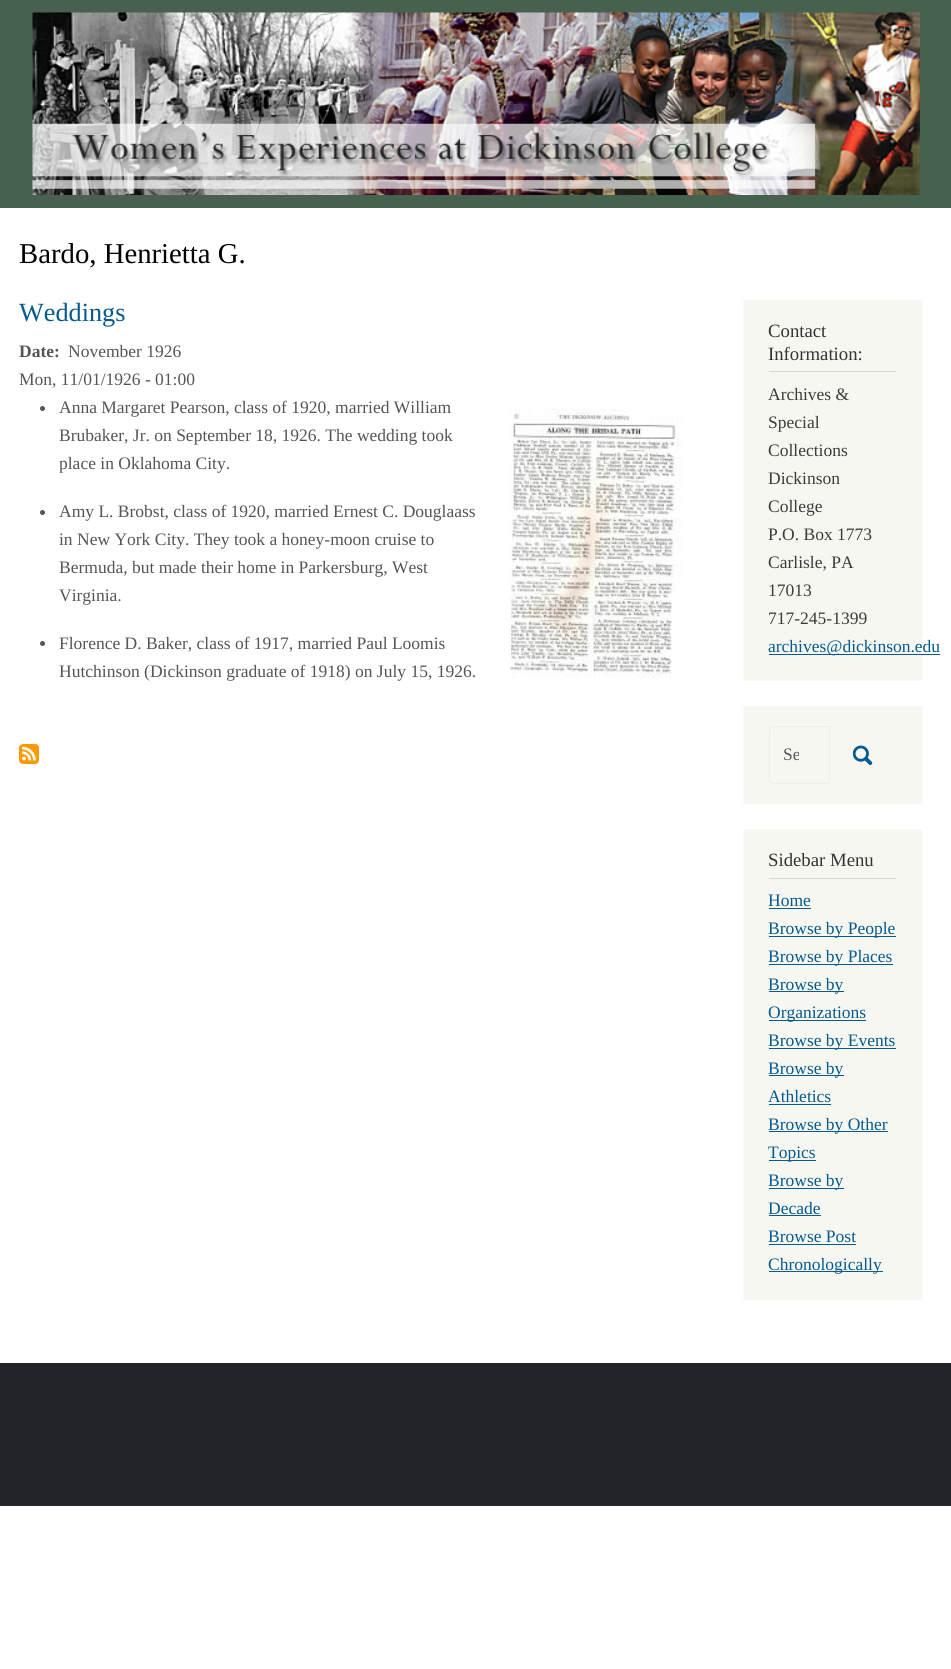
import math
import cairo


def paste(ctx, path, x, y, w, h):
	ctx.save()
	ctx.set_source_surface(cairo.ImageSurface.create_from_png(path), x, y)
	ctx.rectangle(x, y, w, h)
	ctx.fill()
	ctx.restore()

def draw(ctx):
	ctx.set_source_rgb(1, 1, 1)
	ctx.paint()
	ctx.set_source_rgb(0.275, 0.38, 0.302)
	ctx.rectangle(0, 0, 951, 208)
	ctx.fill()
	paste(ctx, 'media/1.png', 32, 12, 888, 183)
	ctx.select_font_face('Liberation Serif')
	ctx.set_font_size(28.75)
	ctx.set_source_rgb(0, 0, 0)
	ctx.move_to(19, 263)
	ctx.show_text('Bardo, Henrietta G.')
	ctx.set_font_size(26.25)
	ctx.set_source_rgb(0.02, 0.353, 0.557)
	ctx.move_to(19, 321)
	ctx.show_text('Weddings')
	ctx.select_font_face('Liberation Serif', cairo.FONT_SLANT_NORMAL, cairo.FONT_WEIGHT_BOLD)
	ctx.set_font_size(17.5)
	ctx.set_source_rgb(0.333, 0.333, 0.333)
	ctx.move_to(19, 357)
	ctx.show_text('Date:')
	ctx.select_font_face('Liberation Serif')
	ctx.move_to(68, 357)
	ctx.show_text('November 1926')
	ctx.move_to(19, 385)
	ctx.show_text('Mon, 11/01/1926 - 01:00')
	ctx.new_path()
	ctx.arc(42.5, 408.5, 2.5, 0, 2 * math.pi)
	ctx.fill()
	for x, y, s in [
		(59, 413, 'Anna Margaret Pearson, class of 1920, married William'),
		(59, 441, 'Brubaker, Jr. on September 18, 1926. The wedding took'),
		(59, 469, 'place in Oklahoma City.'),
	]:
		ctx.move_to(x, y)
		ctx.show_text(s)
	ctx.new_path()
	ctx.arc(42.5, 512.5, 2.5, 0, 2 * math.pi)
	ctx.fill()
	for x, y, s in [
		(59, 517, 'Amy L. Brobst, class of 1920, married Ernest C. Douglaass'),
		(59, 545, 'in New York City. They took a honey-moon cruise to'),
		(59, 573, 'Bermuda, but made their home in Parkersburg, West'),
		(59, 601, 'Virginia.'),
	]:
		ctx.move_to(x, y)
		ctx.show_text(s)
	ctx.new_path()
	ctx.arc(42.5, 643.5, 2.5, 0, 2 * math.pi)
	ctx.fill()
	ctx.move_to(59, 649)
	ctx.show_text('Florence D. Baker, class of 1917, married Paul Loomis')
	ctx.move_to(59, 677)
	ctx.show_text('Hutchinson (Dickinson graduate of 1918) on July 15, 1926.')
	paste(ctx, 'media/2.png', 509, 407, 172, 271)
	paste(ctx, 'media/3.png', 19, 744, 20, 20)
	ctx.set_source_rgb(0.965, 0.965, 0.949)
	ctx.rectangle(743.5, 300.5, 179, 380)
	ctx.fill_preserve()
	ctx.set_source_rgb(0.976, 0.976, 0.976)
	ctx.set_line_width(1)
	ctx.stroke()
	ctx.set_source_rgb(0.839, 0.839, 0.839)
	ctx.rectangle(769, 371, 127, 1)
	ctx.fill()
	ctx.set_font_size(18.75)
	ctx.set_source_rgb(0.2, 0.2, 0.2)
	ctx.move_to(768, 337)
	ctx.show_text('Contact')
	ctx.move_to(768, 360)
	ctx.show_text('Information:')
	ctx.set_font_size(17.5)
	ctx.set_source_rgb(0.231, 0.231, 0.231)
	for x, y, s in [
		(768, 400, 'Archives &'),
		(768, 428, 'Special'),
		(768, 456, 'Collections'),
		(768, 484, 'Dickinson'),
		(768, 512, 'College'),
		(768, 540, 'P.O. Box 1773'),
		(768, 568, 'Carlisle, PA'),
		(768, 596, '17013'),
		(768, 624, '717-245-1399'),
	]:
		ctx.move_to(x, y)
		ctx.show_text(s)
	ctx.set_source_rgb(0.02, 0.353, 0.557)
	ctx.rectangle(769, 654, 171, 1)
	ctx.fill()
	ctx.move_to(768, 652)
	ctx.show_text('archives@dickinson.edu')
	ctx.set_source_rgb(0.965, 0.965, 0.949)
	ctx.rectangle(743.5, 706.5, 179, 97)
	ctx.fill_preserve()
	ctx.set_source_rgb(0.976, 0.976, 0.976)
	ctx.stroke()
	ctx.new_path()
	ctx.move_to(773, 726.5)
	ctx.line_to(829.5, 726.5)
	ctx.line_to(829.5, 783.5)
	ctx.line_to(773, 783.5)
	ctx.curve_to(771, 783.5, 769.5, 782, 769.5, 780)
	ctx.line_to(769.5, 730)
	ctx.curve_to(769.5, 728, 771, 726.5, 773, 726.5)
	ctx.close_path()
	ctx.set_source_rgb(0.929, 0.929, 0.929)
	ctx.stroke()
	ctx.save()
	ctx.rectangle(783, 745, 16, 20)
	ctx.clip()
	ctx.set_source_rgb(0.337, 0.349, 0.357)
	ctx.move_to(783, 760)
	ctx.show_text('Se')
	ctx.restore()
	paste(ctx, 'media/4.png', 853, 745, 20, 20)
	ctx.set_source_rgb(0.965, 0.965, 0.949)
	ctx.rectangle(743.5, 829.5, 179, 470)
	ctx.fill_preserve()
	ctx.set_source_rgb(0.976, 0.976, 0.976)
	ctx.stroke()
	ctx.set_source_rgb(0.839, 0.839, 0.839)
	ctx.rectangle(769, 878, 127, 1)
	ctx.fill()
	ctx.set_font_size(18.75)
	ctx.set_source_rgb(0.2, 0.2, 0.2)
	ctx.move_to(768, 866)
	ctx.show_text('Sidebar Menu')
	ctx.set_font_size(17.5)
	ctx.set_source_rgb(0.02, 0.353, 0.557)
	ctx.move_to(768, 906)
	ctx.show_text('Home')
	ctx.rectangle(769, 908, 42, 1)
	ctx.fill()
	ctx.rectangle(769, 936, 127, 1)
	ctx.fill()
	ctx.move_to(768, 934)
	ctx.show_text('Browse by People')
	ctx.rectangle(769, 964, 124, 1)
	ctx.fill()
	ctx.move_to(768, 962)
	ctx.show_text('Browse by Places')
	ctx.rectangle(769, 991, 75, 1)
	ctx.fill()
	ctx.move_to(768, 990)
	ctx.show_text('Browse by')
	ctx.rectangle(769, 1020, 97, 1)
	ctx.fill()
	ctx.move_to(768, 1018)
	ctx.show_text('Organizations')
	ctx.rectangle(769, 1048, 127, 1)
	ctx.fill()
	ctx.move_to(768, 1046)
	ctx.show_text('Browse by Events')
	ctx.rectangle(769, 1075, 75, 1)
	ctx.fill()
	ctx.move_to(768, 1074)
	ctx.show_text('Browse by')
	ctx.move_to(768, 1102)
	ctx.show_text('Athletics')
	ctx.rectangle(769, 1104, 62, 1)
	ctx.fill()
	ctx.rectangle(769, 1131, 119, 1)
	ctx.fill()
	ctx.move_to(768, 1130)
	ctx.show_text('Browse by Other')
	ctx.rectangle(769, 1160, 47, 1)
	ctx.fill()
	ctx.move_to(768, 1158)
	ctx.show_text('Topics')
	ctx.rectangle(769, 1188, 75, 1)
	ctx.fill()
	ctx.move_to(768, 1186)
	ctx.show_text('Browse by')
	ctx.move_to(768, 1214)
	ctx.show_text('Decade')
	ctx.rectangle(769, 1215, 52, 1)
	ctx.fill()
	ctx.move_to(768, 1242)
	ctx.show_text('Browse Post')
	ctx.rectangle(769, 1244, 87, 1)
	ctx.fill()
	ctx.rectangle(769, 1271, 114, 1)
	ctx.fill()
	ctx.move_to(768, 1270)
	ctx.show_text('Chronologically')
	ctx.set_source_rgb(0.129, 0.145, 0.165)
	ctx.rectangle(0, 1363, 951, 143)
	ctx.fill()


surface = cairo.ImageSurface(cairo.FORMAT_RGB24, 951, 1669)
ctx = cairo.Context(surface)
options = cairo.FontOptions()
options.set_hint_metrics(cairo.HINT_METRICS_OFF)
options.set_hint_style(cairo.HINT_STYLE_NONE)
ctx.set_font_options(options)
ctx.set_miter_limit(4)
draw(ctx)
surface.write_to_png('image.png')
